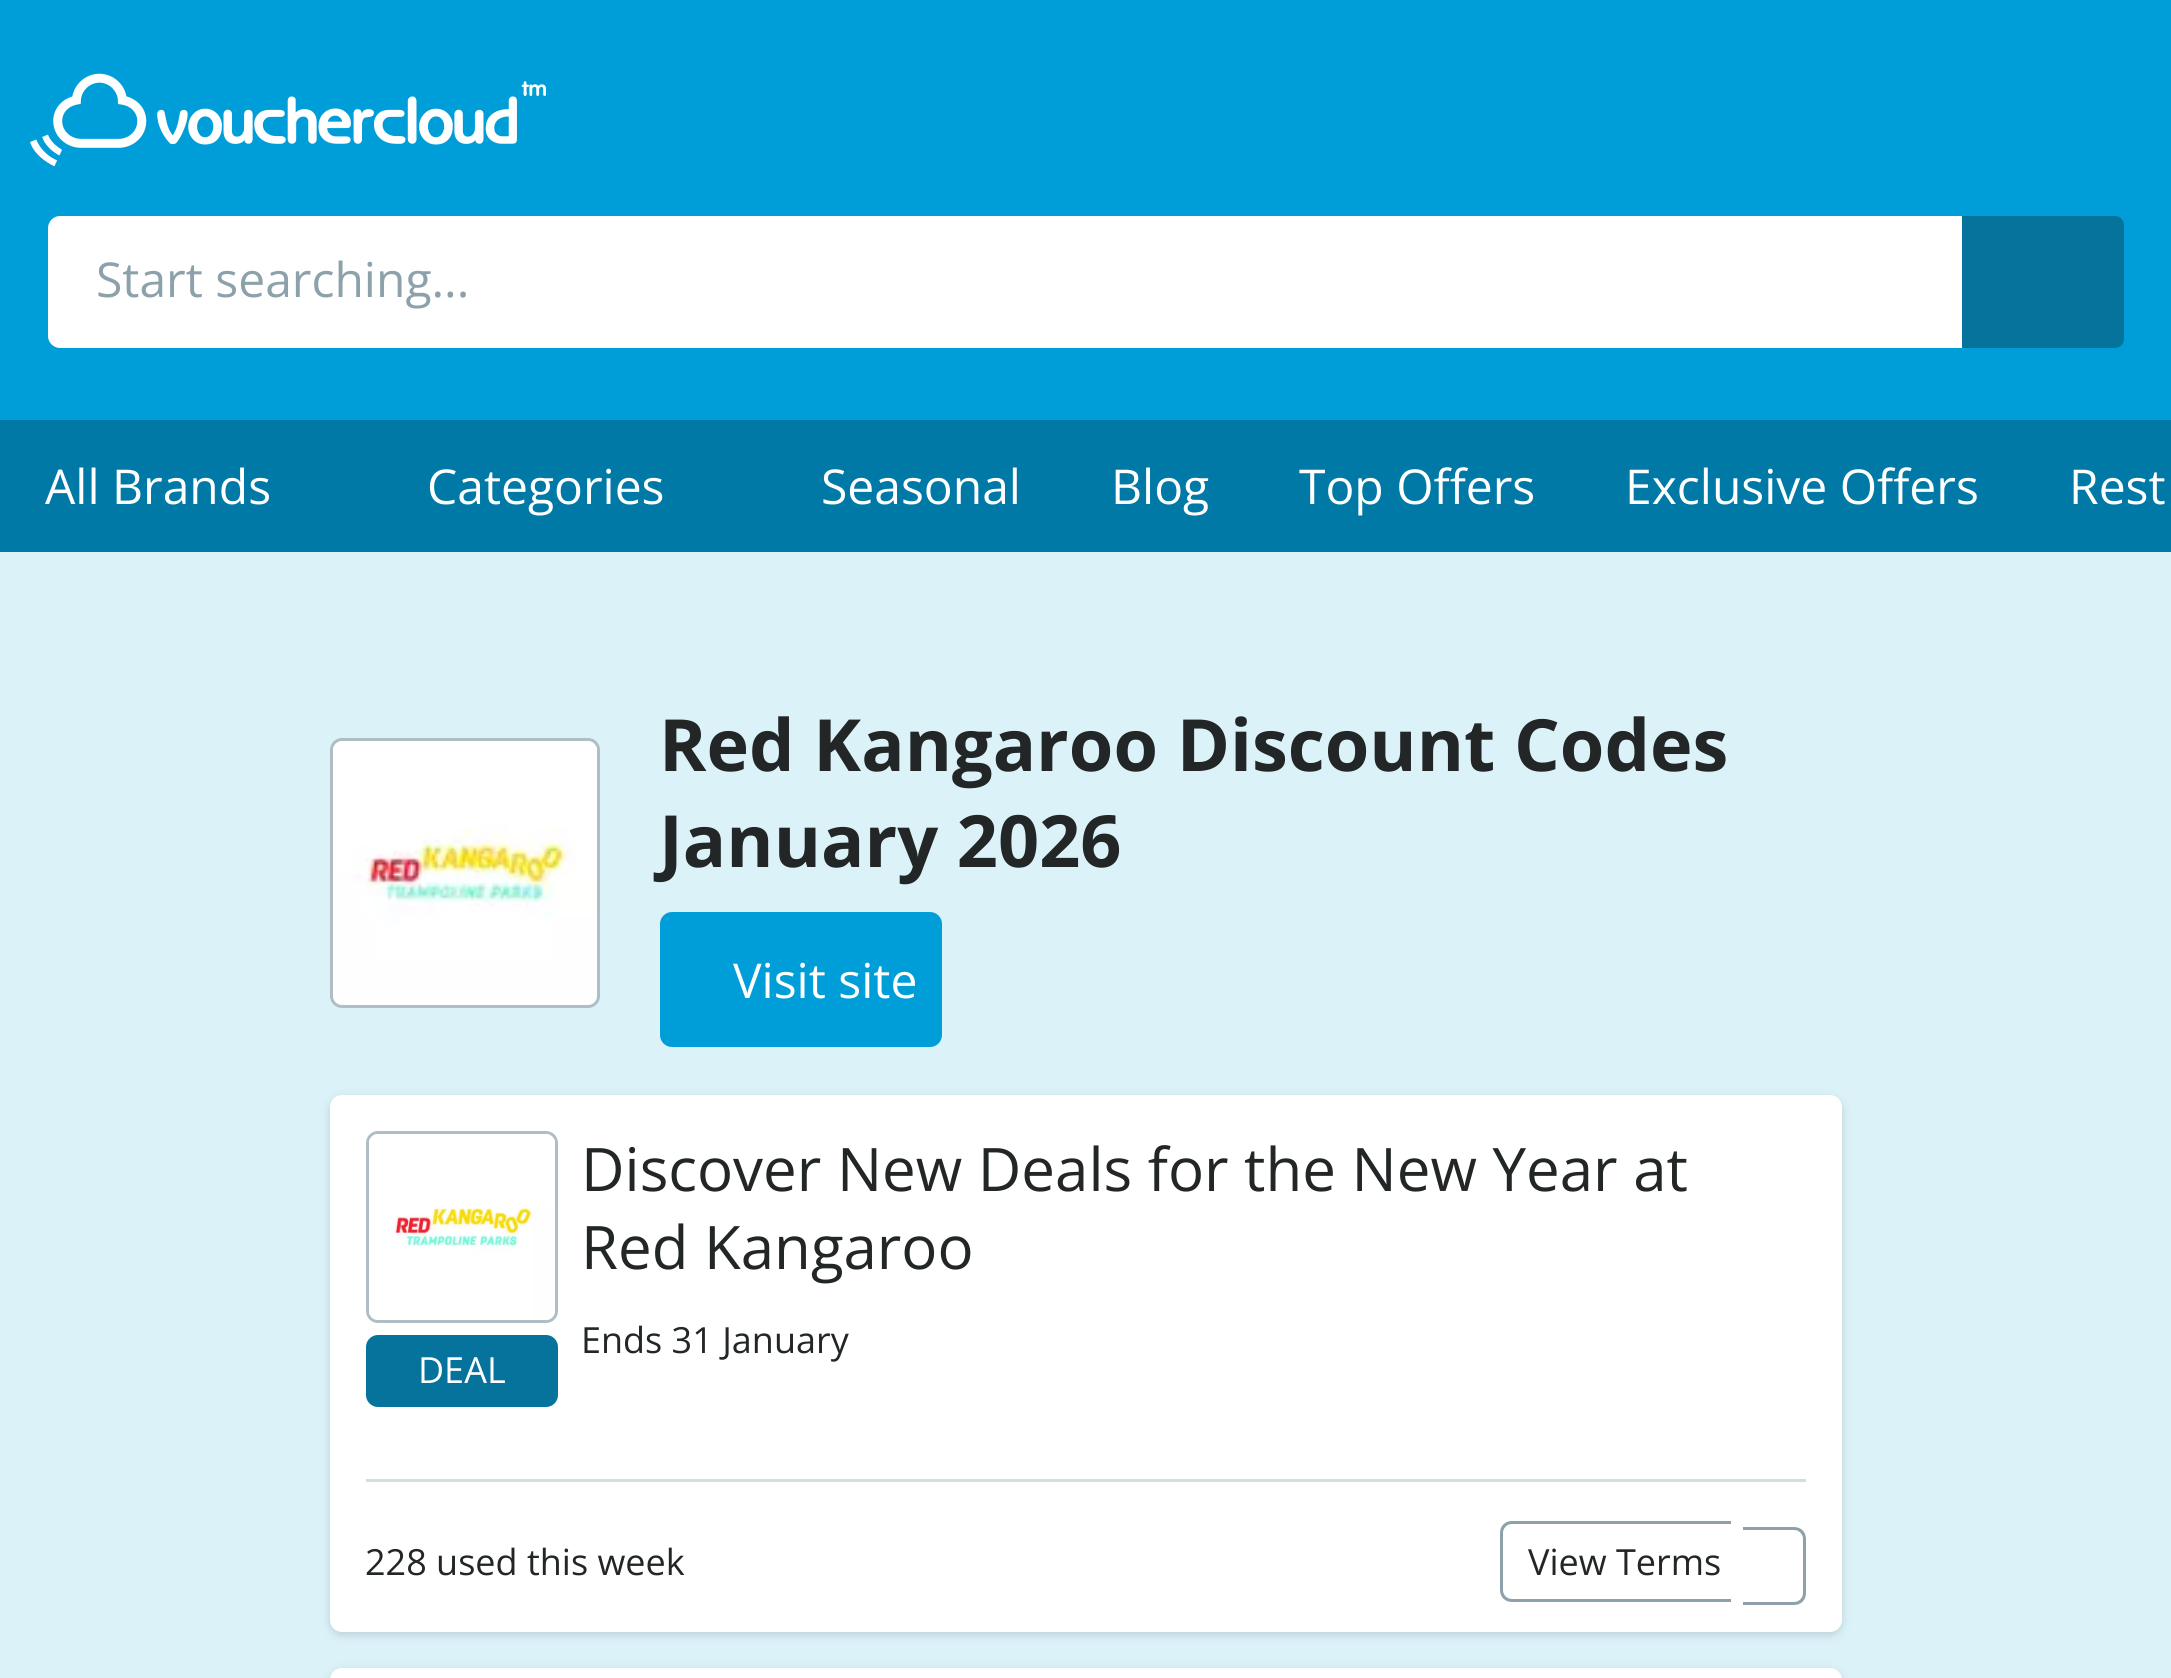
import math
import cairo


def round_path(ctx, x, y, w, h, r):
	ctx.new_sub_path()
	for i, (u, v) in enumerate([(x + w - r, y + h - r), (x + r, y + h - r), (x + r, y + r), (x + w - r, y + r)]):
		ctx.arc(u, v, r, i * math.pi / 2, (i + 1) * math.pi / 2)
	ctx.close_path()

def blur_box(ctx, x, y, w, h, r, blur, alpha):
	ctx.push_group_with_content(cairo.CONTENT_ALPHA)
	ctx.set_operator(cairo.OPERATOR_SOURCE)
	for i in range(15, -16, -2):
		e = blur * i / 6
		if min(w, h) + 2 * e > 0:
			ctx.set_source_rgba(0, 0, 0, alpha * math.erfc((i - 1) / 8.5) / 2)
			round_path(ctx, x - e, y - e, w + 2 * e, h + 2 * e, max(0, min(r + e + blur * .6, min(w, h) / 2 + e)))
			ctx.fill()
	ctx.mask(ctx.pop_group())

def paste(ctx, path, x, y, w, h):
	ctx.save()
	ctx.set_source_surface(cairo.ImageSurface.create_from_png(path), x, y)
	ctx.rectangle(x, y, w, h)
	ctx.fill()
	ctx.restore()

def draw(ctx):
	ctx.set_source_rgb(0.863, 0.949, 0.976)
	ctx.paint()
	ctx.set_source_rgb(0, 0.62, 0.851)
	ctx.rectangle(0, 0, 2171, 420)
	ctx.fill()
	paste(ctx, 'media/1.png', 30, 73, 516, 94)
	ctx.set_source_rgb(1, 1, 1)
	ctx.new_path()
	ctx.move_to(60, 216)
	ctx.line_to(1998, 216)
	ctx.line_to(1998, 348)
	ctx.line_to(60, 348)
	ctx.curve_to(53.5, 348, 48, 342.5, 48, 336)
	ctx.line_to(48, 228)
	ctx.curve_to(48, 221.5, 53.5, 216, 60, 216)
	ctx.close_path()
	ctx.fill()
	ctx.select_font_face('Open Sans')
	ctx.set_font_size(48)
	ctx.set_source_rgb(0.553, 0.631, 0.667)
	ctx.move_to(96, 297)
	ctx.show_text('Start searching...')
	ctx.set_source_rgb(0.024, 0.451, 0.612)
	ctx.new_path()
	ctx.move_to(1962, 216)
	ctx.line_to(2115, 216)
	ctx.curve_to(2120, 216, 2124, 220, 2124, 225)
	ctx.line_to(2124, 339)
	ctx.curve_to(2124, 344, 2120, 348, 2115, 348)
	ctx.line_to(1962, 348)
	ctx.close_path()
	ctx.fill()
	ctx.set_source_rgb(0, 0.475, 0.651)
	ctx.rectangle(0, 420, 2171, 132)
	ctx.fill()
	ctx.set_source_rgb(1, 1, 1)
	for x, y, s in [
		(45, 504, 'All Brands'),
		(427, 504, 'Categories'),
		(821, 504, 'Seasonal'),
		(1111, 504, 'Blog'),
		(1299, 504, 'Top Offers'),
		(1625, 504, 'Exclusive Offers'),
		(2069, 504, 'Rest'),
	]:
		ctx.move_to(x, y)
		ctx.show_text(s)
	round_path(ctx, 331.5, 739.5, 267, 267, 10.5)
	ctx.set_source_rgb(0.686, 0.741, 0.769)
	ctx.set_line_width(3)
	ctx.stroke()
	paste(ctx, 'media/2.png', 333, 741, 264, 264)
	ctx.select_font_face('Open Sans', cairo.FONT_SLANT_NORMAL, cairo.FONT_WEIGHT_BOLD)
	ctx.set_font_size(72)
	ctx.set_source_rgb(0.133, 0.149, 0.153)
	ctx.move_to(659, 771)
	ctx.show_text('Red Kangaroo Discount Codes')
	ctx.move_to(659, 867)
	ctx.show_text('January 2026')
	ctx.set_source_rgb(0, 0.62, 0.851)
	round_path(ctx, 660, 912, 282, 135, 12)
	ctx.fill()
	ctx.select_font_face('Open Sans')
	ctx.set_font_size(48)
	ctx.set_source_rgb(1, 1, 1)
	ctx.move_to(733, 998)
	ctx.show_text('Visit site')
	ctx.set_source_rgb(0.063, 0.094, 0.157)
	blur_box(ctx, 330, 1098, 1512, 537, 12, 4.5, 0.17)
	ctx.set_source_rgb(1, 1, 1)
	round_path(ctx, 330, 1095, 1512, 537, 12)
	ctx.fill()
	ctx.set_font_size(60)
	ctx.set_source_rgb(0.133, 0.149, 0.153)
	ctx.move_to(581, 1191)
	ctx.show_text('Discover New Deals for the New Year at')
	ctx.move_to(581, 1269)
	ctx.show_text('Red Kangaroo')
	ctx.set_font_size(36)
	ctx.move_to(581, 1353)
	ctx.show_text('Ends 31 January')
	round_path(ctx, 367.5, 1132.5, 189, 189, 10.5)
	ctx.set_source_rgb(0.686, 0.741, 0.769)
	ctx.stroke()
	paste(ctx, 'media/3.png', 369, 1134, 186, 186)
	ctx.set_source_rgb(0.024, 0.451, 0.612)
	round_path(ctx, 366, 1335, 192, 72, 12)
	ctx.fill()
	ctx.set_source_rgb(1, 1, 1)
	ctx.move_to(418, 1383)
	ctx.show_text('DEAL')
	ctx.set_source_rgb(0.827, 0.871, 0.89)
	ctx.rectangle(366, 1479, 1440, 3)
	ctx.fill()
	ctx.set_source_rgb(0.133, 0.149, 0.153)
	ctx.move_to(365, 1575)
	ctx.show_text('228 used this week')
	ctx.set_source_rgb(0.553, 0.631, 0.667)
	ctx.set_fill_rule(cairo.FILL_RULE_EVEN_ODD)
	ctx.new_path()
	ctx.move_to(1512, 1521)
	ctx.line_to(1731, 1521)
	ctx.line_to(1731, 1602)
	ctx.line_to(1512, 1602)
	ctx.curve_to(1505, 1602, 1500, 1597, 1500, 1590)
	ctx.line_to(1500, 1533)
	ctx.curve_to(1500, 1526, 1505, 1521, 1512, 1521)
	ctx.close_path()
	ctx.move_to(1512, 1524)
	ctx.line_to(1731, 1524)
	ctx.line_to(1731, 1599)
	ctx.line_to(1512, 1599)
	ctx.curve_to(1507, 1599, 1503, 1595, 1503, 1590)
	ctx.line_to(1503, 1533)
	ctx.curve_to(1503, 1528, 1507, 1524, 1512, 1524)
	ctx.close_path()
	ctx.fill()
	ctx.set_source_rgb(0.133, 0.149, 0.153)
	ctx.move_to(1528, 1575)
	ctx.show_text('View Terms')
	ctx.set_source_rgb(0.553, 0.631, 0.667)
	ctx.new_path()
	ctx.move_to(1743, 1527)
	ctx.line_to(1794, 1527)
	ctx.curve_to(1801, 1527, 1806, 1532, 1806, 1539)
	ctx.line_to(1806, 1593)
	ctx.curve_to(1806, 1600, 1801, 1605, 1794, 1605)
	ctx.line_to(1743, 1605)
	ctx.close_path()
	ctx.move_to(1743, 1530)
	ctx.line_to(1794, 1530)
	ctx.curve_to(1799, 1530, 1803, 1534, 1803, 1539)
	ctx.line_to(1803, 1593)
	ctx.curve_to(1803, 1598, 1799, 1602, 1794, 1602)
	ctx.line_to(1743, 1602)
	ctx.close_path()
	ctx.fill()
	ctx.set_source_rgb(0.063, 0.094, 0.157)
	blur_box(ctx, 330, 1671, 1512, 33, 12, 4.5, 0.17)
	ctx.set_source_rgb(1, 1, 1)
	round_path(ctx, 330, 1668, 1512, 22, 12)
	ctx.fill()


surface = cairo.ImageSurface(cairo.FORMAT_RGB24, 2171, 1678)
ctx = cairo.Context(surface)
options = cairo.FontOptions()
options.set_hint_metrics(cairo.HINT_METRICS_OFF)
options.set_hint_style(cairo.HINT_STYLE_NONE)
ctx.set_font_options(options)
ctx.set_miter_limit(4)
draw(ctx)
surface.write_to_png('image.png')
